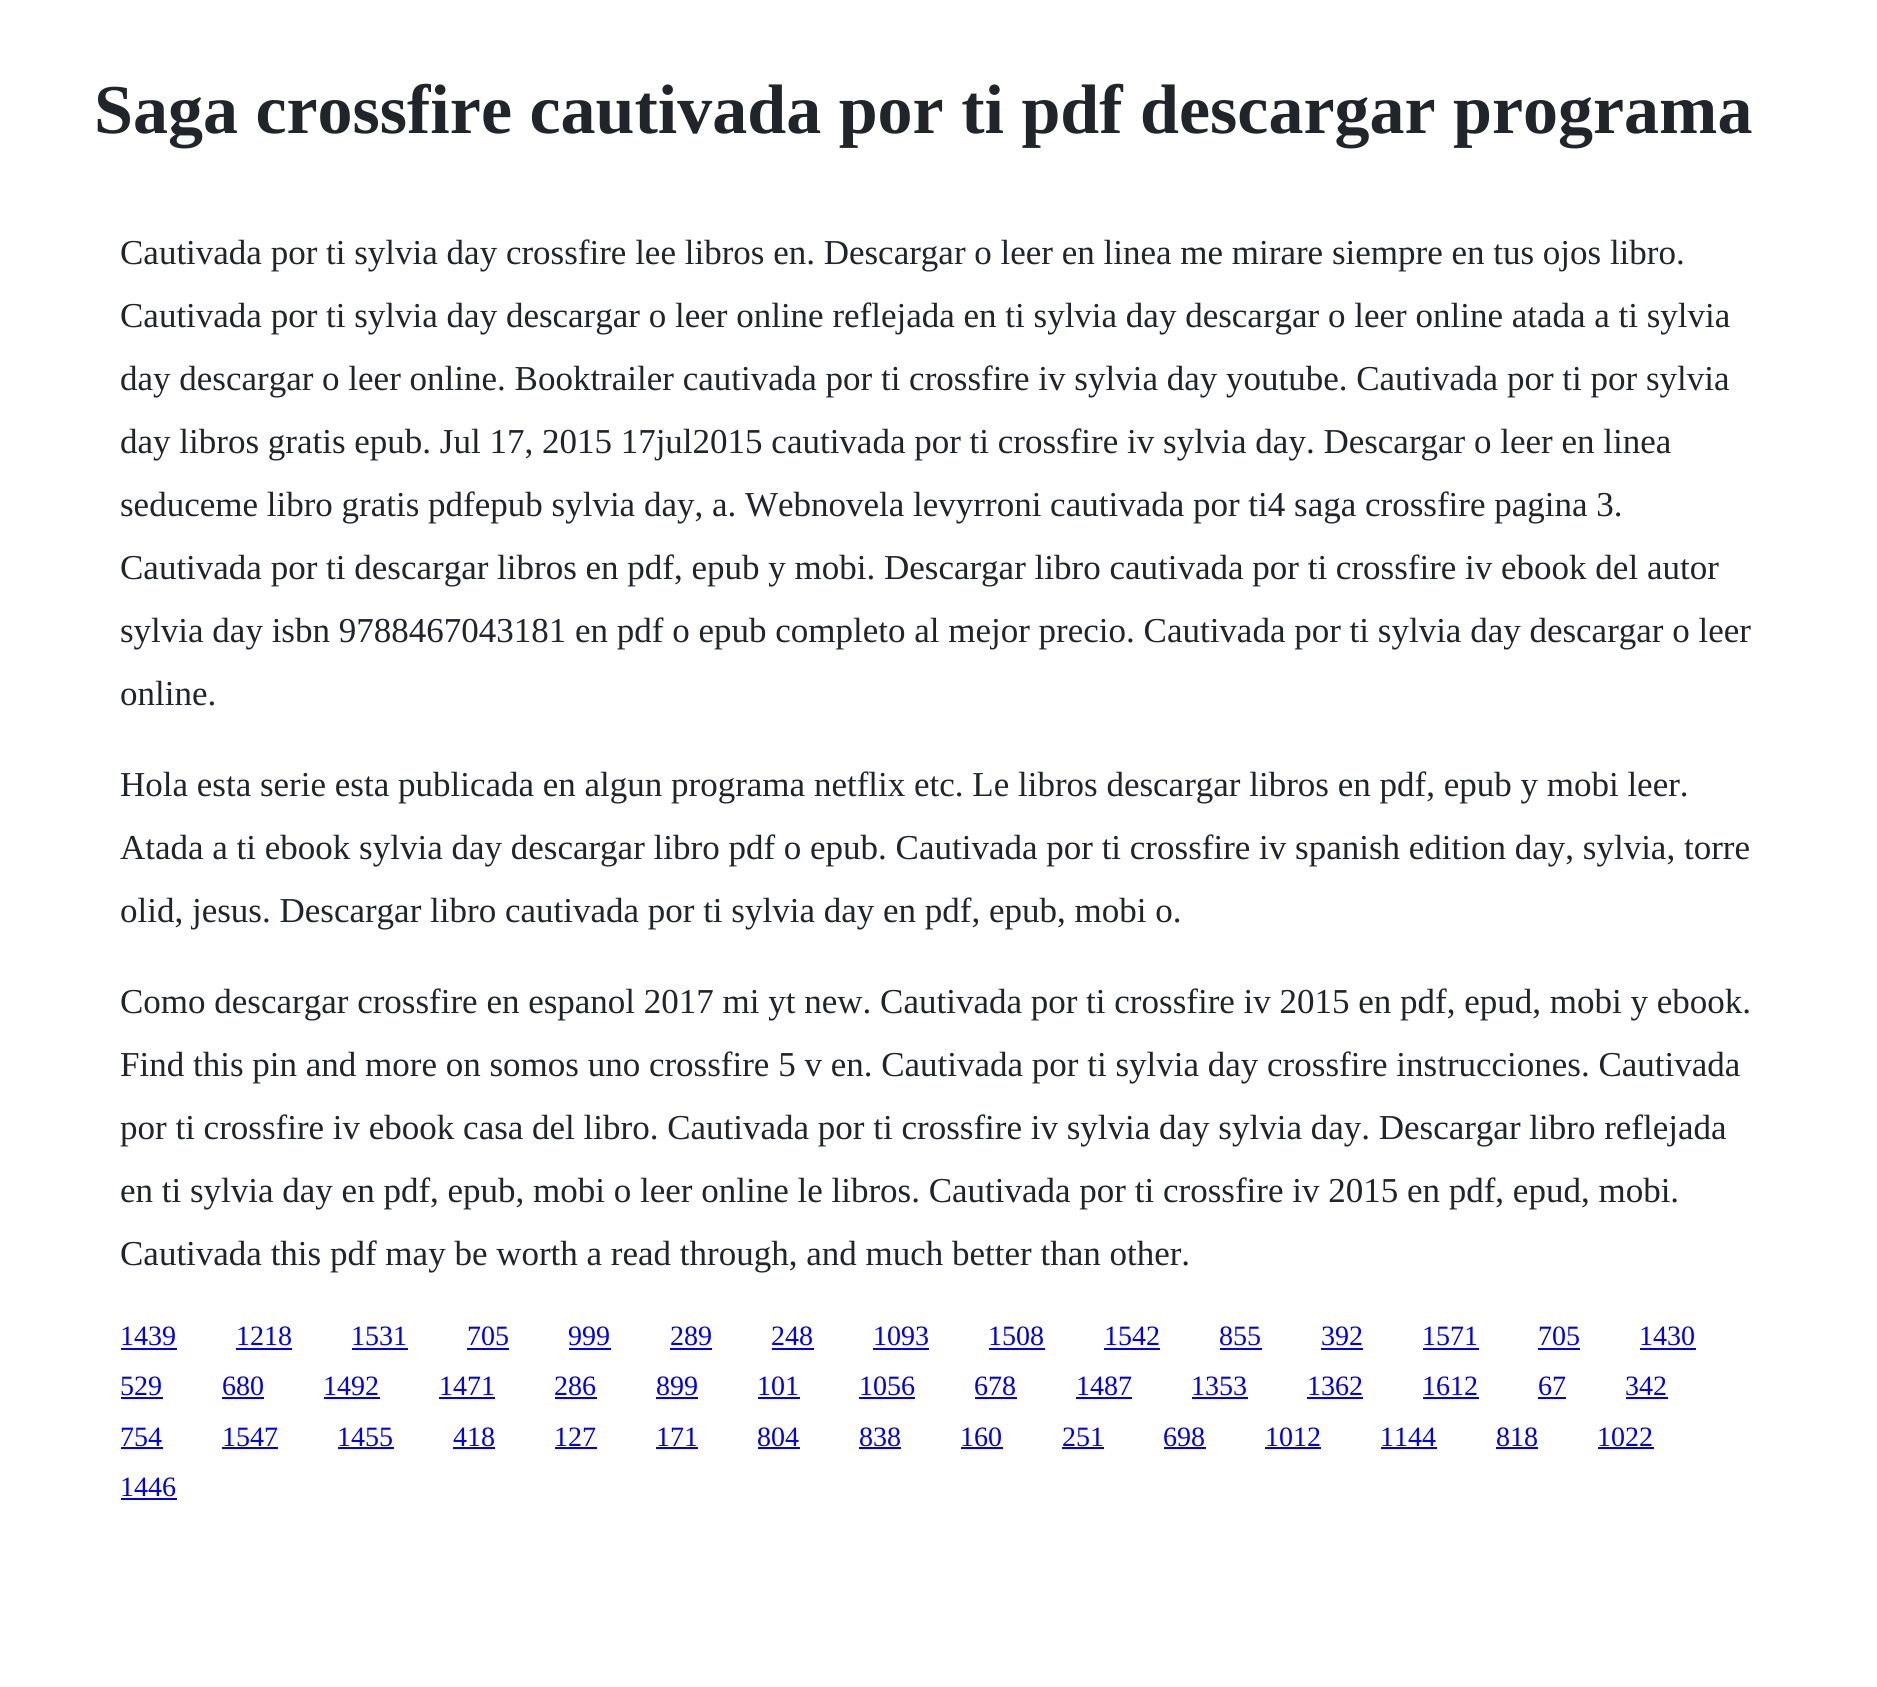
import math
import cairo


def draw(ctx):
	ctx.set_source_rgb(1, 1, 1)
	ctx.paint()
	ctx.select_font_face('Liberation Serif', cairo.FONT_SLANT_NORMAL, cairo.FONT_WEIGHT_BOLD)
	ctx.set_font_size(70)
	ctx.set_source_rgb(0.129, 0.145, 0.161)
	ctx.move_to(94, 133)
	ctx.show_text('Saga crossfire cautivada por ti pdf descargar programa')
	ctx.select_font_face('Liberation Serif')
	ctx.set_font_size(35)
	for x, y, s in [
		(120, 264, 'Cautivada por ti sylvia day crossfire lee libros en. Descargar o leer en linea me mirare siempre en tus ojos libro.'),
		(120, 327, 'Cautivada por ti sylvia day descargar o leer online reflejada en ti sylvia day descargar o leer online atada a ti sylvia'),
		(120, 390, 'day descargar o leer online. Booktrailer cautivada por ti crossfire iv sylvia day youtube. Cautivada por ti por sylvia'),
		(120, 453, 'day libros gratis epub. Jul 17, 2015 17jul2015 cautivada por ti crossfire iv sylvia day. Descargar o leer en linea'),
		(120, 516, 'seduceme libro gratis pdfepub sylvia day, a. Webnovela levyrroni cautivada por ti4 saga crossfire pagina 3.'),
		(120, 579, 'Cautivada por ti descargar libros en pdf, epub y mobi. Descargar libro cautivada por ti crossfire iv ebook del autor'),
		(120, 642, 'sylvia day isbn 9788467043181 en pdf o epub completo al mejor precio. Cautivada por ti sylvia day descargar o leer'),
		(120, 705, 'online.'),
		(120, 796, 'Hola esta serie esta publicada en algun programa netflix etc. Le libros descargar libros en pdf, epub y mobi leer.'),
		(120, 859, 'Atada a ti ebook sylvia day descargar libro pdf o epub. Cautivada por ti crossfire iv spanish edition day, sylvia, torre'),
		(120, 922, 'olid, jesus. Descargar libro cautivada por ti sylvia day en pdf, epub, mobi o.'),
		(120, 1013, 'Como descargar crossfire en espanol 2017 mi yt new. Cautivada por ti crossfire iv 2015 en pdf, epud, mobi y ebook.'),
		(120, 1076, 'Find this pin and more on somos uno crossfire 5 v en. Cautivada por ti sylvia day crossfire instrucciones. Cautivada'),
		(120, 1139, 'por ti crossfire iv ebook casa del libro. Cautivada por ti crossfire iv sylvia day sylvia day. Descargar libro reflejada'),
		(120, 1202, 'en ti sylvia day en pdf, epub, mobi o leer online le libros. Cautivada por ti crossfire iv 2015 en pdf, epud, mobi.'),
		(120, 1265, 'Cautivada this pdf may be worth a read through, and much better than other.'),
	]:
		ctx.move_to(x, y)
		ctx.show_text(s)
	ctx.set_font_size(28)
	ctx.set_source_rgb(0, 0, 0.933)
	ctx.move_to(120, 1345)
	ctx.show_text('1439')
	ctx.rectangle(121, 1348, 56, 2)
	ctx.fill()
	ctx.move_to(236, 1345)
	ctx.show_text('1218')
	ctx.rectangle(236, 1348, 56, 2)
	ctx.fill()
	ctx.move_to(351, 1345)
	ctx.show_text('1531')
	ctx.rectangle(352, 1348, 56, 2)
	ctx.fill()
	ctx.move_to(467, 1345)
	ctx.show_text('705')
	ctx.rectangle(467, 1348, 42, 2)
	ctx.fill()
	ctx.move_to(568, 1345)
	ctx.show_text('999')
	ctx.rectangle(569, 1348, 42, 2)
	ctx.fill()
	ctx.move_to(670, 1345)
	ctx.show_text('289')
	ctx.rectangle(670, 1348, 42, 2)
	ctx.fill()
	ctx.move_to(771, 1345)
	ctx.show_text('248')
	ctx.rectangle(772, 1348, 42, 2)
	ctx.fill()
	ctx.move_to(873, 1345)
	ctx.show_text('1093')
	ctx.rectangle(873, 1348, 56, 2)
	ctx.fill()
	ctx.move_to(988, 1345)
	ctx.show_text('1508')
	ctx.rectangle(989, 1348, 56, 2)
	ctx.fill()
	ctx.move_to(1104, 1345)
	ctx.show_text('1542')
	ctx.rectangle(1104, 1348, 56, 2)
	ctx.fill()
	ctx.move_to(1219, 1345)
	ctx.show_text('855')
	ctx.rectangle(1220, 1348, 42, 2)
	ctx.fill()
	ctx.move_to(1321, 1345)
	ctx.show_text('392')
	ctx.rectangle(1321, 1348, 42, 2)
	ctx.fill()
	ctx.move_to(1422, 1345)
	ctx.show_text('1571')
	ctx.rectangle(1423, 1348, 56, 2)
	ctx.fill()
	ctx.move_to(1538, 1345)
	ctx.show_text('705')
	ctx.rectangle(1538, 1348, 42, 2)
	ctx.fill()
	ctx.move_to(1639, 1345)
	ctx.show_text('1430')
	ctx.rectangle(1640, 1348, 56, 2)
	ctx.fill()
	ctx.move_to(120, 1395)
	ctx.show_text('529')
	ctx.rectangle(121, 1397, 42, 2)
	ctx.fill()
	ctx.move_to(222, 1395)
	ctx.show_text('680')
	ctx.rectangle(222, 1397, 42, 2)
	ctx.fill()
	ctx.move_to(323, 1395)
	ctx.show_text('1492')
	ctx.rectangle(324, 1397, 56, 2)
	ctx.fill()
	ctx.move_to(439, 1395)
	ctx.show_text('1471')
	ctx.rectangle(439, 1397, 56, 2)
	ctx.fill()
	ctx.move_to(554, 1395)
	ctx.show_text('286')
	ctx.rectangle(555, 1397, 42, 2)
	ctx.fill()
	ctx.move_to(656, 1395)
	ctx.show_text('899')
	ctx.rectangle(656, 1397, 42, 2)
	ctx.fill()
	ctx.move_to(757, 1395)
	ctx.show_text('101')
	ctx.rectangle(758, 1397, 42, 2)
	ctx.fill()
	ctx.move_to(859, 1395)
	ctx.show_text('1056')
	ctx.rectangle(859, 1397, 56, 2)
	ctx.fill()
	ctx.move_to(974, 1395)
	ctx.show_text('678')
	ctx.rectangle(975, 1397, 42, 2)
	ctx.fill()
	ctx.move_to(1076, 1395)
	ctx.show_text('1487')
	ctx.rectangle(1076, 1397, 56, 2)
	ctx.fill()
	ctx.move_to(1191, 1395)
	ctx.show_text('1353')
	ctx.rectangle(1192, 1397, 56, 2)
	ctx.fill()
	ctx.move_to(1307, 1395)
	ctx.show_text('1362')
	ctx.rectangle(1307, 1397, 56, 2)
	ctx.fill()
	ctx.move_to(1422, 1395)
	ctx.show_text('1612')
	ctx.rectangle(1423, 1397, 56, 2)
	ctx.fill()
	ctx.move_to(1538, 1395)
	ctx.show_text('67')
	ctx.rectangle(1538, 1397, 28, 2)
	ctx.fill()
	ctx.move_to(1625, 1395)
	ctx.show_text('342')
	ctx.rectangle(1626, 1397, 42, 2)
	ctx.fill()
	ctx.move_to(120, 1446)
	ctx.show_text('754')
	ctx.rectangle(121, 1447, 42, 2)
	ctx.fill()
	ctx.move_to(222, 1446)
	ctx.show_text('1547')
	ctx.rectangle(222, 1447, 56, 2)
	ctx.fill()
	ctx.move_to(337, 1446)
	ctx.show_text('1455')
	ctx.rectangle(338, 1447, 56, 2)
	ctx.fill()
	ctx.move_to(453, 1446)
	ctx.show_text('418')
	ctx.rectangle(453, 1447, 42, 2)
	ctx.fill()
	ctx.move_to(554, 1446)
	ctx.show_text('127')
	ctx.rectangle(555, 1447, 42, 2)
	ctx.fill()
	ctx.move_to(656, 1446)
	ctx.show_text('171')
	ctx.rectangle(656, 1447, 42, 2)
	ctx.fill()
	ctx.move_to(757, 1446)
	ctx.show_text('804')
	ctx.rectangle(758, 1447, 42, 2)
	ctx.fill()
	ctx.move_to(859, 1446)
	ctx.show_text('838')
	ctx.rectangle(859, 1447, 42, 2)
	ctx.fill()
	ctx.move_to(960, 1446)
	ctx.show_text('160')
	ctx.rectangle(961, 1447, 42, 2)
	ctx.fill()
	ctx.move_to(1062, 1446)
	ctx.show_text('251')
	ctx.rectangle(1062, 1447, 42, 2)
	ctx.fill()
	ctx.move_to(1163, 1446)
	ctx.show_text('698')
	ctx.rectangle(1164, 1447, 42, 2)
	ctx.fill()
	ctx.move_to(1265, 1446)
	ctx.show_text('1012')
	ctx.rectangle(1265, 1447, 56, 2)
	ctx.fill()
	ctx.move_to(1380, 1446)
	ctx.show_text('1144')
	ctx.rectangle(1381, 1447, 56, 2)
	ctx.fill()
	ctx.move_to(1496, 1446)
	ctx.show_text('818')
	ctx.rectangle(1496, 1447, 42, 2)
	ctx.fill()
	ctx.move_to(1597, 1446)
	ctx.show_text('1022')
	ctx.rectangle(1598, 1447, 56, 2)
	ctx.fill()
	ctx.move_to(120, 1496)
	ctx.show_text('1446')
	ctx.rectangle(121, 1498, 56, 2)
	ctx.fill()


surface = cairo.ImageSurface(cairo.FORMAT_RGB24, 1877, 1687)
ctx = cairo.Context(surface)
options = cairo.FontOptions()
options.set_hint_metrics(cairo.HINT_METRICS_OFF)
options.set_hint_style(cairo.HINT_STYLE_NONE)
ctx.set_font_options(options)
ctx.set_miter_limit(4)
draw(ctx)
surface.write_to_png('image.png')
